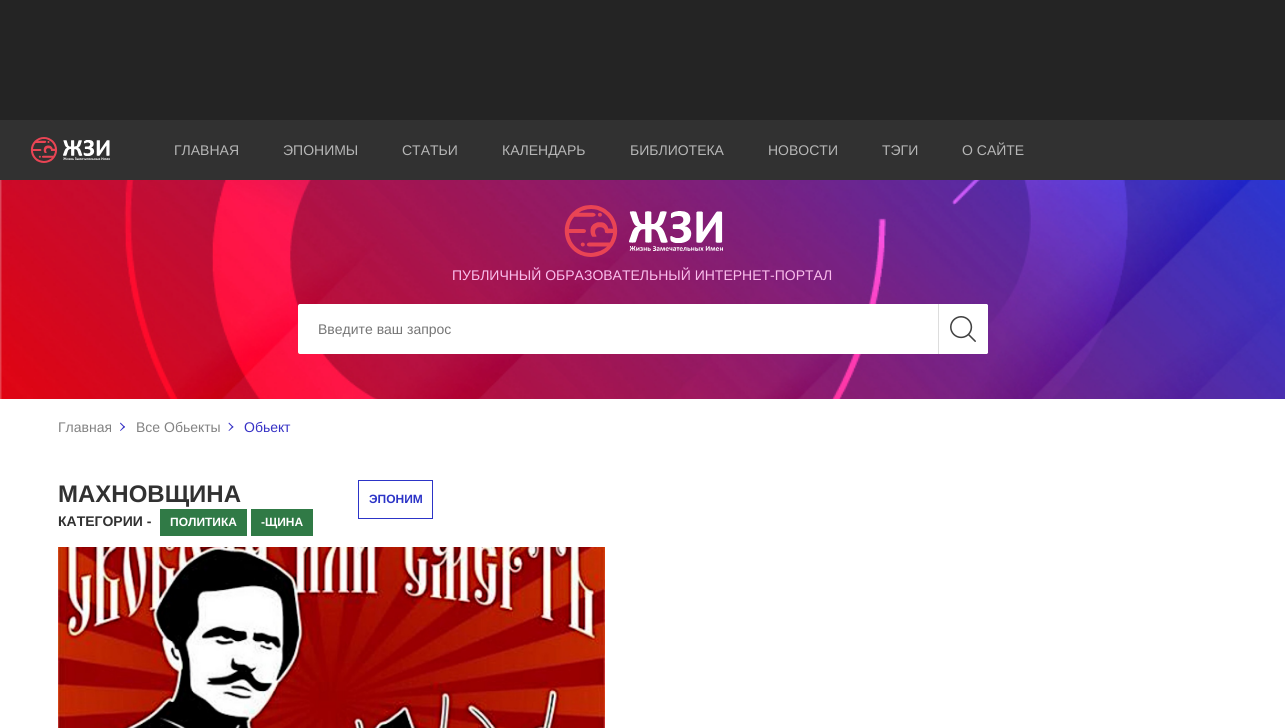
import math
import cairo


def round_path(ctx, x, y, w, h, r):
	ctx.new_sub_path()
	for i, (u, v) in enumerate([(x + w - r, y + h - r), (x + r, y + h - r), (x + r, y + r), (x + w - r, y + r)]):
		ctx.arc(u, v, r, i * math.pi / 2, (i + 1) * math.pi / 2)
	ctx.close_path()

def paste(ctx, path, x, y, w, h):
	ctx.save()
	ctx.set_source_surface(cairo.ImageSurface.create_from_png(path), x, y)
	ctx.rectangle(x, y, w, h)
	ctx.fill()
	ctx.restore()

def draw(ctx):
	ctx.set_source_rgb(1, 1, 1)
	ctx.paint()
	ctx.set_source_rgb(0.141, 0.141, 0.141)
	ctx.rectangle(0, 0, 1285, 120)
	ctx.fill()
	ctx.set_source_rgb(0.192, 0.192, 0.192)
	ctx.rectangle(0, 120, 1285, 60)
	ctx.fill()
	paste(ctx, 'media/1.png', 30, 137, 80, 26)
	ctx.select_font_face('Liberation Sans')
	ctx.set_font_size(14)
	ctx.set_source_rgb(0.714, 0.714, 0.714)
	for x, y, s in [
		(174, 155, 'ГЛАВНАЯ'),
		(283, 155, 'ЭПОНИМЫ'),
		(402, 155, 'СТАТЬИ'),
		(502, 155, 'КАЛЕНДАРЬ'),
		(630, 155, 'БИБЛИОТЕКА'),
		(768, 155, 'НОВОСТИ'),
		(882, 155, 'ТЭГИ'),
		(962, 155, 'О САЙТЕ'),
	]:
		ctx.move_to(x, y)
		ctx.show_text(s)
	paste(ctx, 'media/2.png', 0, 180, 1285, 219)
	paste(ctx, 'media/3.png', 564, 205, 159, 52)
	ctx.set_source_rgb(0.98, 0.741, 0.925)
	ctx.move_to(452, 280)
	ctx.show_text('ПУБЛИЧНЫЙ ОБРАЗОВАТЕЛЬНЫЙ ИНТЕРНЕТ-ПОРТАЛ')
	ctx.set_source_rgb(1, 1, 1)
	round_path(ctx, 298, 304, 690, 50, 2)
	ctx.fill()
	ctx.set_source_rgb(0.459, 0.459, 0.459)
	ctx.move_to(318, 334)
	ctx.show_text('Введите ваш запрос')
	ctx.set_source_rgb(1, 1, 1)
	ctx.new_path()
	ctx.move_to(938, 304)
	ctx.line_to(986, 304)
	ctx.curve_to(987, 304, 988, 305, 988, 306)
	ctx.line_to(988, 352)
	ctx.curve_to(988, 353, 987, 354, 986, 354)
	ctx.line_to(938, 354)
	ctx.close_path()
	ctx.fill()
	paste(ctx, 'media/4.png', 950, 316, 26, 26)
	ctx.set_source_rgb(0.867, 0.867, 0.867)
	ctx.rectangle(938, 304, 1, 50)
	ctx.fill()
	ctx.set_source_rgb(0.51, 0.51, 0.51)
	ctx.move_to(58, 432)
	ctx.show_text('Главная')
	ctx.set_source_rgb(0.212, 0.192, 0.773)
	ctx.new_path()
	ctx.move_to(120.5, 422.5)
	ctx.line_to(125, 427)
	ctx.line_to(124, 427.5)
	ctx.line_to(120, 423.5)
	ctx.close_path()
	ctx.fill()
	ctx.new_path()
	ctx.move_to(124, 426)
	ctx.line_to(125, 427)
	ctx.line_to(120.5, 431)
	ctx.line_to(120, 430.5)
	ctx.close_path()
	ctx.fill()
	ctx.set_source_rgb(0.51, 0.51, 0.51)
	ctx.move_to(136, 432)
	ctx.show_text('Все Обьекты')
	ctx.set_source_rgb(0.212, 0.192, 0.773)
	ctx.new_path()
	ctx.move_to(229, 422.5)
	ctx.line_to(233.5, 427)
	ctx.line_to(232.5, 427.5)
	ctx.line_to(228.5, 423.5)
	ctx.close_path()
	ctx.fill()
	ctx.new_path()
	ctx.move_to(232.5, 426)
	ctx.line_to(233.5, 427)
	ctx.line_to(229, 431)
	ctx.line_to(228.5, 430.5)
	ctx.close_path()
	ctx.fill()
	ctx.move_to(244, 432)
	ctx.show_text('Обьект')
	ctx.select_font_face('Liberation Sans', cairo.FONT_SLANT_NORMAL, cairo.FONT_WEIGHT_BOLD)
	ctx.set_font_size(24)
	ctx.set_source_rgb(0.192, 0.192, 0.192)
	ctx.move_to(58, 502)
	ctx.show_text('МАХНОВЩИНА')
	ctx.set_font_size(14)
	ctx.move_to(58, 526)
	ctx.show_text('КАТЕГОРИИ -')
	ctx.set_source_rgb(0.188, 0.478, 0.275)
	ctx.rectangle(160, 509, 87, 27)
	ctx.fill()
	ctx.set_font_size(12)
	ctx.set_source_rgb(1, 1, 1)
	ctx.move_to(170, 526)
	ctx.show_text('ПОЛИТИКА')
	ctx.set_source_rgb(0.188, 0.478, 0.275)
	ctx.rectangle(251, 509, 62, 27)
	ctx.fill()
	ctx.set_source_rgb(1, 1, 1)
	ctx.move_to(261, 526)
	ctx.show_text('-ЩИНА')
	ctx.rectangle(358.5, 480.5, 74, 38)
	ctx.set_source_rgb(0.173, 0.204, 0.78)
	ctx.set_line_width(1)
	ctx.stroke()
	ctx.move_to(369, 503)
	ctx.show_text('ЭПОНИМ')
	paste(ctx, 'media/5.png', 58, 547, 547, 181)


surface = cairo.ImageSurface(cairo.FORMAT_RGB24, 1285, 728)
ctx = cairo.Context(surface)
options = cairo.FontOptions()
options.set_hint_metrics(cairo.HINT_METRICS_OFF)
options.set_hint_style(cairo.HINT_STYLE_NONE)
ctx.set_font_options(options)
ctx.set_miter_limit(4)
draw(ctx)
surface.write_to_png('image.png')
